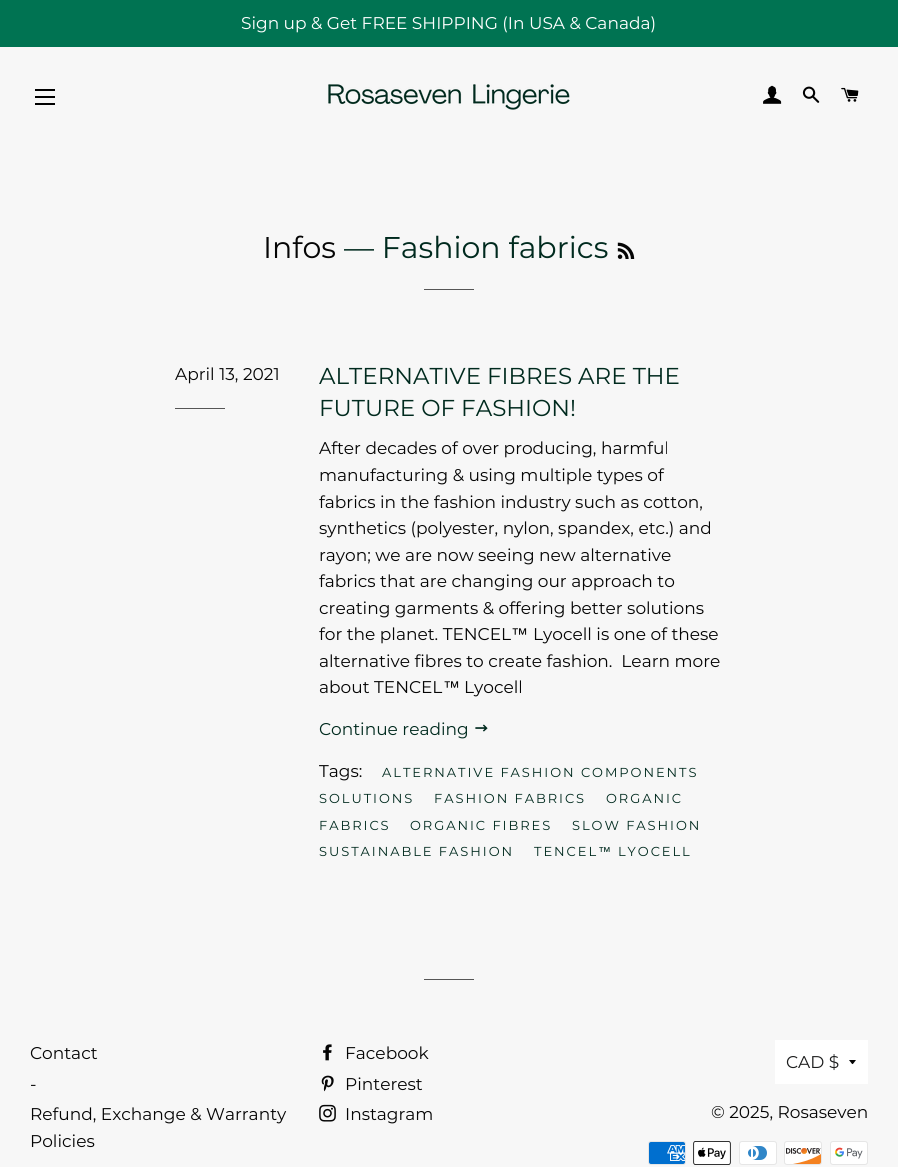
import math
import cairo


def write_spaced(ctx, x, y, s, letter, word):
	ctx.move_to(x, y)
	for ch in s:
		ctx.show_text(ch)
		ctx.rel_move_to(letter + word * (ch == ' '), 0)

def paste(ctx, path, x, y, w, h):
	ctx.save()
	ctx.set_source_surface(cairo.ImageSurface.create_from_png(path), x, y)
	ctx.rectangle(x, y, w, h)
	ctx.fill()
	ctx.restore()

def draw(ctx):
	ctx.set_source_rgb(0.965, 0.965, 0.965)
	ctx.paint()
	ctx.set_source_rgb(0, 0.451, 0.322)
	ctx.rectangle(0, 0, 898, 47)
	ctx.fill()
	ctx.select_font_face('Montserrat')
	ctx.set_font_size(17)
	ctx.set_source_rgb(1, 1, 1)
	ctx.move_to(241, 29)
	ctx.show_text('Sign up & Get FREE SHIPPING (In USA & Canada)')
	ctx.set_source_rgb(0, 0, 0)
	ctx.rectangle(35, 89, 20, 2)
	ctx.rectangle(35, 96, 20, 2)
	ctx.rectangle(35, 103, 20, 2)
	ctx.fill()
	paste(ctx, 'media/1.png', 328, 84, 242, 26)
	paste(ctx, 'media/2.png', 763, 85, 19, 19)
	paste(ctx, 'media/3.png', 802, 86, 18, 17)
	paste(ctx, 'media/4.png', 841, 87, 18, 15)
	ctx.set_font_size(30)
	ctx.set_source_rgb(0.02, 0.02, 0.02)
	ctx.move_to(263, 258)
	ctx.show_text('Infos')
	ctx.set_source_rgb(0, 0.165, 0.118)
	ctx.move_to(344, 258)
	ctx.show_text('— Fashion fabrics')
	paste(ctx, 'media/5.png', 617, 242, 18, 17)
	ctx.set_source_rgb(0.337, 0.337, 0.337)
	ctx.rectangle(424, 289, 50, 1)
	ctx.fill()
	ctx.set_font_size(17)
	ctx.set_source_rgb(0.02, 0.02, 0.02)
	ctx.move_to(175, 380)
	ctx.show_text('April 13, 2021')
	ctx.set_source_rgb(0.337, 0.337, 0.337)
	ctx.rectangle(175, 408, 50, 1)
	ctx.fill()
	ctx.set_font_size(23)
	ctx.set_source_rgb(0, 0.165, 0.118)
	ctx.move_to(319, 384)
	ctx.show_text('ALTERNATIVE FIBRES ARE THE')
	ctx.move_to(319, 416)
	ctx.show_text('FUTURE OF FASHION!')
	ctx.set_font_size(17)
	ctx.set_source_rgb(0.02, 0.02, 0.02)
	for x, y, s in [
		(319, 454, 'After decades of over producing, harmful'),
		(319, 481, 'manufacturing & using multiple types of'),
		(319, 508, 'fabrics in the fashion industry such as cotton,'),
		(319, 534, 'synthetics (polyester, nylon, spandex, etc.) and'),
		(319, 561, 'rayon; we are now seeing new alternative'),
		(319, 587, 'fabrics that are changing our approach to'),
		(319, 614, 'creating garments & offering better solutions'),
		(319, 640, 'for the planet. TENCEL'),
	]:
		ctx.move_to(x, y)
		ctx.show_text(s)
	ctx.select_font_face('Liberation Sans')
	ctx.move_to(511, 640)
	ctx.show_text('™')
	ctx.select_font_face('Montserrat')
	for x, y, s in [
		(533, 640, 'Lyocell is one of these'),
		(319, 667, 'alternative fibres to create fashion.  Learn more'),
		(319, 693, 'about TENCEL'),
	]:
		ctx.move_to(x, y)
		ctx.show_text(s)
	ctx.select_font_face('Liberation Sans')
	ctx.move_to(443, 693)
	ctx.show_text('™')
	ctx.select_font_face('Montserrat')
	ctx.move_to(464, 693)
	ctx.show_text('Lyocell')
	ctx.set_source_rgb(0, 0.165, 0.118)
	ctx.move_to(319, 735)
	ctx.show_text('Continue reading')
	paste(ctx, 'media/6.png', 475, 724, 13, 8)
	ctx.set_source_rgb(0.02, 0.02, 0.02)
	ctx.move_to(319, 777)
	ctx.show_text('Tags:')
	ctx.set_font_size(13)
	ctx.set_source_rgb(0, 0.165, 0.118)
	for x, y, s in [
		(382, 777, 'ALTERNATIVE FASHION COMPONENTS'),
		(319, 803, 'SOLUTIONS'),
		(434, 803, 'FASHION FABRICS'),
		(606, 803, 'ORGANIC'),
		(319, 830, 'FABRICS'),
		(410, 830, 'ORGANIC FIBRES'),
		(572, 830, 'SLOW FASHION'),
		(319, 856, 'SUSTAINABLE FASHION'),
		(534, 856, 'TENCEL'),
	]:
		write_spaced(ctx, x, y, s, 1.95, 0)
	ctx.select_font_face('Liberation Sans')
	write_spaced(ctx, 598, 856, '™', 1.95, 0)
	ctx.select_font_face('Montserrat')
	write_spaced(ctx, 618, 856, 'LYOCELL', 1.95, 0)
	ctx.set_source_rgb(0.337, 0.337, 0.337)
	ctx.rectangle(424, 979, 50, 1)
	ctx.fill()
	ctx.set_font_size(17)
	ctx.set_source_rgb(0.02, 0.02, 0.02)
	for x, y, s in [
		(30, 1059, 'Contact'),
		(30, 1090, '-'),
		(30, 1120, 'Refund, Exchange & Warranty'),
		(30, 1147, 'Policies'),
	]:
		ctx.move_to(x, y)
		ctx.show_text(s)
	paste(ctx, 'media/7.png', 323, 1044, 9, 17)
	ctx.move_to(345, 1059)
	ctx.show_text('Facebook')
	paste(ctx, 'media/8.png', 321, 1075, 13, 17)
	ctx.move_to(345, 1090)
	ctx.show_text('Pinterest')
	paste(ctx, 'media/9.png', 319, 1104, 17, 18)
	ctx.move_to(345, 1120)
	ctx.show_text('Instagram')
	ctx.set_source_rgb(1, 1, 1)
	ctx.rectangle(775, 1040, 93, 44)
	ctx.fill()
	ctx.set_source_rgb(0.02, 0.02, 0.02)
	ctx.new_path()
	ctx.move_to(849, 1060)
	ctx.curve_to(853.5, 1065.5, 851.5, 1065.5, 856, 1060)
	ctx.close_path()
	ctx.fill()
	ctx.set_source_rgb(0.11, 0.114, 0.114)
	ctx.move_to(786, 1068)
	ctx.show_text('CAD $')
	ctx.set_source_rgb(0.02, 0.02, 0.02)
	ctx.move_to(711, 1118)
	ctx.show_text('© 2025, Rosaseven')
	paste(ctx, 'media/10.png', 648, 1141, 38, 24)
	paste(ctx, 'media/11.png', 693, 1141, 38, 24)
	paste(ctx, 'media/12.png', 739, 1141, 38, 24)
	paste(ctx, 'media/13.png', 784, 1141, 38, 24)
	paste(ctx, 'media/14.png', 830, 1141, 38, 24)


surface = cairo.ImageSurface(cairo.FORMAT_RGB24, 898, 1167)
ctx = cairo.Context(surface)
options = cairo.FontOptions()
options.set_hint_metrics(cairo.HINT_METRICS_OFF)
options.set_hint_style(cairo.HINT_STYLE_NONE)
ctx.set_font_options(options)
ctx.set_miter_limit(4)
draw(ctx)
surface.write_to_png('image.png')
